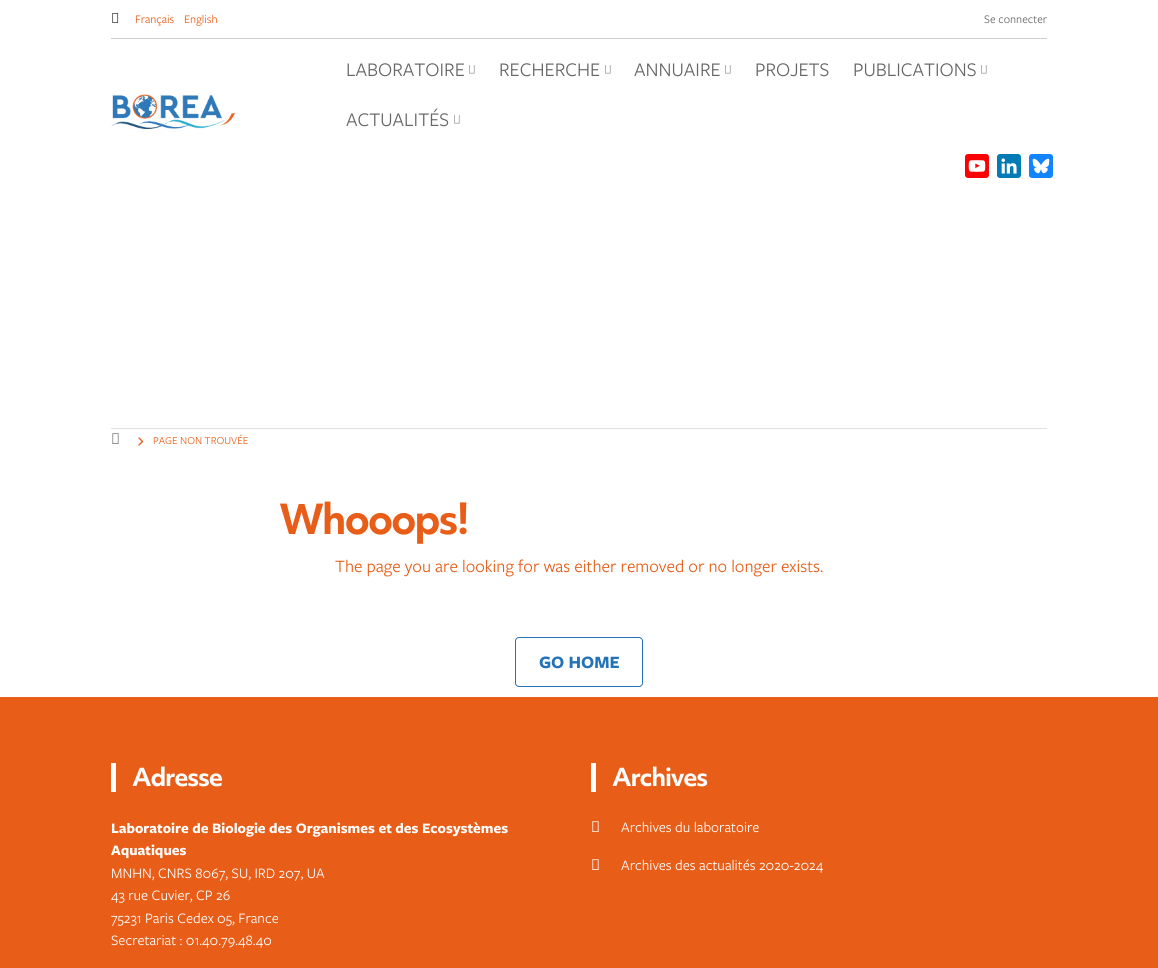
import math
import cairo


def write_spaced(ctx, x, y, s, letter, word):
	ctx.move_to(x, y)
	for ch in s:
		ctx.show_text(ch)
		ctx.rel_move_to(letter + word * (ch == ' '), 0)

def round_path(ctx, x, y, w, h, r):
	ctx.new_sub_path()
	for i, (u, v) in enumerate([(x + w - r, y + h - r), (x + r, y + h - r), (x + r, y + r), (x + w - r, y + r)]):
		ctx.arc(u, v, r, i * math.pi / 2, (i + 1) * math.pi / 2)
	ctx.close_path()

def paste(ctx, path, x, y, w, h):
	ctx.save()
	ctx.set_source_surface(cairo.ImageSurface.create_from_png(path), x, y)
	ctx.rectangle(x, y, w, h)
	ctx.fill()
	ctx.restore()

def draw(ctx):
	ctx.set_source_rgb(1, 1, 1)
	ctx.paint()
	ctx.set_source_rgb(0.804, 0.804, 0.804)
	ctx.rectangle(111, 38, 936, 1)
	ctx.fill()
	paste(ctx, 'media/1.png', 112, 13, 7, 10)
	ctx.select_font_face('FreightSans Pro')
	ctx.set_font_size(12)
	ctx.set_source_rgb(0.91, 0.365, 0.09)
	ctx.move_to(135, 23)
	ctx.show_text('Français')
	ctx.move_to(184, 23)
	ctx.show_text('English')
	ctx.set_source_rgb(0.4, 0.4, 0.4)
	ctx.move_to(984, 23)
	ctx.show_text('Se connecter')
	paste(ctx, 'media/2.png', 111, 94, 124, 35)
	ctx.set_font_size(20)
	ctx.move_to(346, 76)
	ctx.show_text('LABORATOIRE')
	paste(ctx, 'media/3.png', 469, 65, 6, 9)
	ctx.move_to(499, 76)
	ctx.show_text('RECHERCHE')
	paste(ctx, 'media/3.png', 605, 65, 6, 9)
	ctx.move_to(634, 76)
	ctx.show_text('ANNUAIRE')
	paste(ctx, 'media/3.png', 725, 65, 6, 9)
	ctx.move_to(755, 76)
	ctx.show_text('PROJETS')
	ctx.move_to(853, 76)
	ctx.show_text('PUBLICATIONS')
	paste(ctx, 'media/3.png', 981, 65, 6, 9)
	ctx.move_to(346, 126)
	ctx.show_text('ACTUALITÉS')
	paste(ctx, 'media/3.png', 454, 115, 6, 9)
	ctx.set_source_rgb(1, 0, 0)
	round_path(ctx, 965, 154, 24, 24, 3)
	ctx.fill()
	paste(ctx, 'media/4.png', 968, 160, 18, 12)
	ctx.set_source_rgb(0, 0.482, 0.71)
	round_path(ctx, 997, 154, 24, 24, 3)
	ctx.fill()
	paste(ctx, 'media/5.png', 1001, 158, 16, 16)
	ctx.set_source_rgb(0.071, 0.522, 0.996)
	round_path(ctx, 1029, 154, 24, 24, 3)
	ctx.fill()
	paste(ctx, 'media/6.png', 1032, 158, 18, 16)
	ctx.set_source_rgb(0.882, 0.882, 0.882)
	ctx.rectangle(111, 428, 936, 1)
	ctx.fill()
	paste(ctx, 'media/7.png', 112, 433, 7, 11)
	paste(ctx, 'media/8.png', 138, 437, 6, 9)
	ctx.set_font_size(11)
	ctx.set_source_rgb(0.91, 0.365, 0.09)
	ctx.move_to(153, 444)
	ctx.show_text('PAGE NON TROUVÉE')
	ctx.select_font_face('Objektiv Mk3', cairo.FONT_SLANT_NORMAL, cairo.FONT_WEIGHT_BOLD)
	ctx.set_font_size(40)
	write_spaced(ctx, 279, 534, 'Whooops!', -2.25, 0)
	ctx.select_font_face('FreightSans Pro')
	ctx.set_font_size(18)
	ctx.move_to(335, 572)
	ctx.show_text('The page you are looking for was either removed or no longer exists.')
	round_path(ctx, 515.5, 637.5, 127, 49, 3.5)
	ctx.set_source_rgb(0.141, 0.451, 0.718)
	ctx.set_line_width(1)
	ctx.stroke()
	ctx.select_font_face('FreightSans Pro', cairo.FONT_SLANT_NORMAL, cairo.FONT_WEIGHT_BOLD)
	ctx.move_to(539, 668)
	ctx.show_text('GO HOME')
	ctx.set_source_rgb(0.91, 0.365, 0.09)
	ctx.rectangle(0, 697, 1158, 271)
	ctx.fill()
	ctx.set_source_rgb(1, 1, 1)
	ctx.rectangle(111, 763, 5, 29)
	ctx.fill()
	ctx.select_font_face('Objektiv Mk3', cairo.FONT_SLANT_NORMAL, cairo.FONT_WEIGHT_BOLD)
	ctx.set_font_size(24)
	write_spaced(ctx, 132, 786, 'Adresse', -1.25, 0)
	ctx.select_font_face('FreightSans Pro', cairo.FONT_SLANT_NORMAL, cairo.FONT_WEIGHT_BOLD)
	ctx.set_font_size(15)
	ctx.move_to(111, 833)
	ctx.show_text('Laboratoire de Biologie des Organismes et des Ecosystèmes')
	ctx.move_to(111, 855)
	ctx.show_text('Aquatiques')
	ctx.select_font_face('FreightSans Pro')
	for x, y, s in [
		(111, 878, 'MNHN, CNRS 8067, SU, IRD 207, UA'),
		(111, 900, '43 rue Cuvier, CP 26'),
		(111, 923, '75231 Paris Cedex 05, France'),
		(111, 945, 'Secretariat : 01.40.79.48.40'),
	]:
		ctx.move_to(x, y)
		ctx.show_text(s)
	ctx.rectangle(591, 763, 5, 29)
	ctx.fill()
	ctx.select_font_face('Objektiv Mk3', cairo.FONT_SLANT_NORMAL, cairo.FONT_WEIGHT_BOLD)
	ctx.set_font_size(24)
	write_spaced(ctx, 612, 786, 'Archives', -1.25, 0)
	paste(ctx, 'media/9.png', 592, 821, 7, 11)
	ctx.select_font_face('FreightSans Pro')
	ctx.set_font_size(15)
	ctx.move_to(621, 832)
	ctx.show_text('Archives du laboratoire')
	paste(ctx, 'media/9.png', 592, 859, 7, 11)
	ctx.move_to(621, 870)
	ctx.show_text('Archives des actualités 2020-2024')


surface = cairo.ImageSurface(cairo.FORMAT_RGB24, 1158, 968)
ctx = cairo.Context(surface)
options = cairo.FontOptions()
options.set_hint_metrics(cairo.HINT_METRICS_OFF)
options.set_hint_style(cairo.HINT_STYLE_NONE)
ctx.set_font_options(options)
ctx.set_miter_limit(4)
draw(ctx)
surface.write_to_png('image.png')
